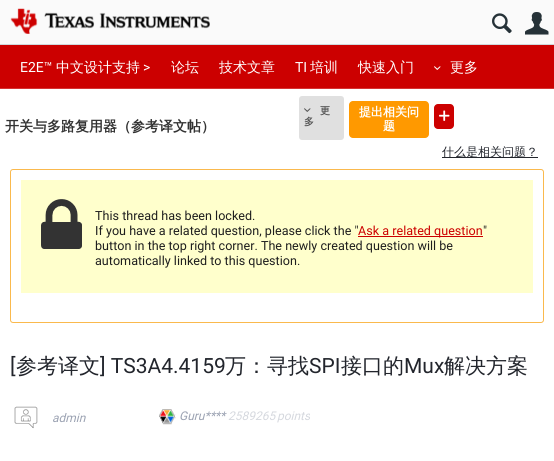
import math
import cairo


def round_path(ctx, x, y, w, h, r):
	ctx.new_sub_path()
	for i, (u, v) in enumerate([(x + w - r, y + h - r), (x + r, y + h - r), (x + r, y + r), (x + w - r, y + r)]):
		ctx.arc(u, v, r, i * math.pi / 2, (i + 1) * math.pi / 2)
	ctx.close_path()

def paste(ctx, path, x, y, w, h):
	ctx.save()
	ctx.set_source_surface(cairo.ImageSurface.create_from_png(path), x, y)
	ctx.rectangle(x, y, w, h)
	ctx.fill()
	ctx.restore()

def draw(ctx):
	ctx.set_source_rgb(1, 1, 1)
	ctx.paint()
	ctx.set_source_rgb(0.812, 0.847, 0.863)
	ctx.rectangle(0, 44, 554, 1)
	ctx.fill()
	ctx.set_source_rgb(0.98, 0.98, 0.98)
	ctx.rectangle(0, 0, 554, 44)
	ctx.fill()
	paste(ctx, 'media/1.png', 10, 8, 200, 26)
	paste(ctx, 'media/2.png', 492, 13, 20, 21)
	paste(ctx, 'media/3.png', 525, 12, 24, 23)
	ctx.set_source_rgb(0.8, 0, 0)
	ctx.rectangle(0, 45, 554, 43)
	ctx.fill()
	ctx.set_source_rgb(0.839, 0.2, 0.2)
	ctx.rectangle(0, 88, 554, 1)
	ctx.fill()
	ctx.select_font_face('Roboto')
	ctx.set_font_size(14)
	ctx.set_source_rgb(1, 1, 1)
	ctx.move_to(20, 72)
	ctx.show_text('E2E™')
	ctx.select_font_face('WenQuanYi Zen Hei Medium')
	ctx.move_to(56, 72)
	ctx.show_text('中文设计支持')
	ctx.select_font_face('Roboto')
	ctx.move_to(143, 72)
	ctx.show_text('>')
	ctx.select_font_face('WenQuanYi Zen Hei Medium')
	ctx.move_to(171, 72)
	ctx.show_text('论坛')
	ctx.move_to(219, 72)
	ctx.show_text('技术文章')
	ctx.select_font_face('Roboto')
	ctx.move_to(295, 72)
	ctx.show_text('TI')
	ctx.select_font_face('WenQuanYi Zen Hei Medium')
	ctx.move_to(310, 72)
	ctx.show_text('培训')
	ctx.move_to(358, 72)
	ctx.show_text('快速入门')
	paste(ctx, 'media/4.png', 434, 66, 7, 4)
	ctx.move_to(450, 72)
	ctx.show_text('更多')
	ctx.select_font_face('WenQuanYi Zen Hei', cairo.FONT_SLANT_NORMAL, cairo.FONT_WEIGHT_BOLD)
	ctx.set_source_rgb(0.2, 0.2, 0.2)
	ctx.move_to(5, 131)
	ctx.show_text('开关与多路复用器（参考译文帖）')
	ctx.set_source_rgb(0.878, 0.878, 0.878)
	round_path(ctx, 299, 96, 45, 44, 3)
	ctx.fill()
	paste(ctx, 'media/5.png', 304, 108, 7, 4)
	ctx.set_font_size(10)
	ctx.set_source_rgb(0.333, 0.333, 0.333)
	ctx.move_to(320, 114)
	ctx.show_text('更')
	ctx.move_to(304, 125)
	ctx.show_text('多')
	ctx.set_source_rgb(0.8, 0, 0)
	round_path(ctx, 434, 104, 20, 25, 4)
	ctx.fill()
	paste(ctx, 'media/6.png', 439, 110, 11, 11)
	ctx.set_source_rgb(1, 0.6, 0)
	round_path(ctx, 349, 101, 80, 37, 4)
	ctx.fill()
	ctx.set_font_size(12)
	ctx.set_source_rgb(1, 1, 1)
	ctx.move_to(359, 116)
	ctx.show_text('提出相关问')
	ctx.move_to(383, 130)
	ctx.show_text('题')
	ctx.set_source_rgb(0.133, 0.145, 0.173)
	ctx.rectangle(442, 157, 96, 1)
	ctx.fill()
	ctx.select_font_face('WenQuanYi Zen Hei Medium')
	ctx.move_to(442, 156)
	ctx.show_text('什么是相关问题？')
	round_path(ctx, 10.5, 169.5, 533, 153, 2.5)
	ctx.set_source_rgb(0.98, 0.725, 0.302)
	ctx.set_line_width(1)
	ctx.stroke()
	ctx.set_source_rgb(1, 1, 0.8)
	ctx.rectangle(21, 180, 512, 113)
	ctx.fill()
	paste(ctx, 'media/7.png', 41, 199, 41, 50)
	ctx.select_font_face('Roboto')
	ctx.set_font_size(12.6)
	ctx.set_source_rgb(0.118, 0.118, 0.118)
	ctx.move_to(95, 220)
	ctx.show_text('This thread has been locked.')
	ctx.move_to(95, 235)
	ctx.show_text('If you have a related question, please click the "')
	ctx.set_source_rgb(0.8, 0, 0)
	ctx.rectangle(358, 236, 125, 1)
	ctx.fill()
	ctx.move_to(358, 235)
	ctx.show_text('Ask a related question')
	ctx.set_source_rgb(0.118, 0.118, 0.118)
	for x, y, s in [
		(483, 235, '"'),
		(95, 250, 'button in the top right corner. The newly created question will be'),
		(95, 265, 'automatically linked to this question.'),
	]:
		ctx.move_to(x, y)
		ctx.show_text(s)
	ctx.set_font_size(21)
	ctx.set_source_rgb(0.133, 0.145, 0.173)
	ctx.move_to(10, 373)
	ctx.show_text('[')
	ctx.select_font_face('WenQuanYi Zen Hei Medium')
	ctx.move_to(16, 373)
	ctx.show_text('参考译文')
	ctx.select_font_face('Roboto')
	ctx.move_to(100, 373)
	ctx.show_text('] TS3A4.4159')
	ctx.select_font_face('WenQuanYi Zen Hei Medium')
	ctx.move_to(225, 373)
	ctx.show_text('万：寻找')
	ctx.select_font_face('Roboto')
	ctx.move_to(309, 373)
	ctx.show_text('SPI')
	ctx.select_font_face('WenQuanYi Zen Hei Medium')
	ctx.move_to(341, 373)
	ctx.show_text('接口的')
	ctx.select_font_face('Roboto')
	ctx.move_to(404, 373)
	ctx.show_text('Mux')
	ctx.select_font_face('WenQuanYi Zen Hei Medium')
	ctx.move_to(444, 373)
	ctx.show_text('解决方案')
	paste(ctx, 'media/8.png', 14, 406, 24, 23)
	ctx.select_font_face('Roboto', cairo.FONT_SLANT_ITALIC)
	ctx.set_font_size(12)
	ctx.set_source_rgb(0.608, 0.635, 0.698)
	ctx.move_to(52, 422)
	ctx.show_text('admin')
	paste(ctx, 'media/9.png', 159, 409, 17, 16)
	ctx.move_to(179, 420)
	ctx.show_text('Guru****')
	ctx.set_source_rgb(0.835, 0.847, 0.871)
	ctx.move_to(228, 420)
	ctx.show_text('2589265')
	ctx.save()
	ctx.rectangle(10, 401, 300, 32)
	ctx.clip()
	ctx.move_to(277, 420)
	ctx.show_text('points')
	ctx.restore()


surface = cairo.ImageSurface(cairo.FORMAT_RGB24, 554, 461)
ctx = cairo.Context(surface)
options = cairo.FontOptions()
options.set_hint_metrics(cairo.HINT_METRICS_OFF)
options.set_hint_style(cairo.HINT_STYLE_NONE)
ctx.set_font_options(options)
ctx.set_miter_limit(4)
draw(ctx)
surface.write_to_png('image.png')
